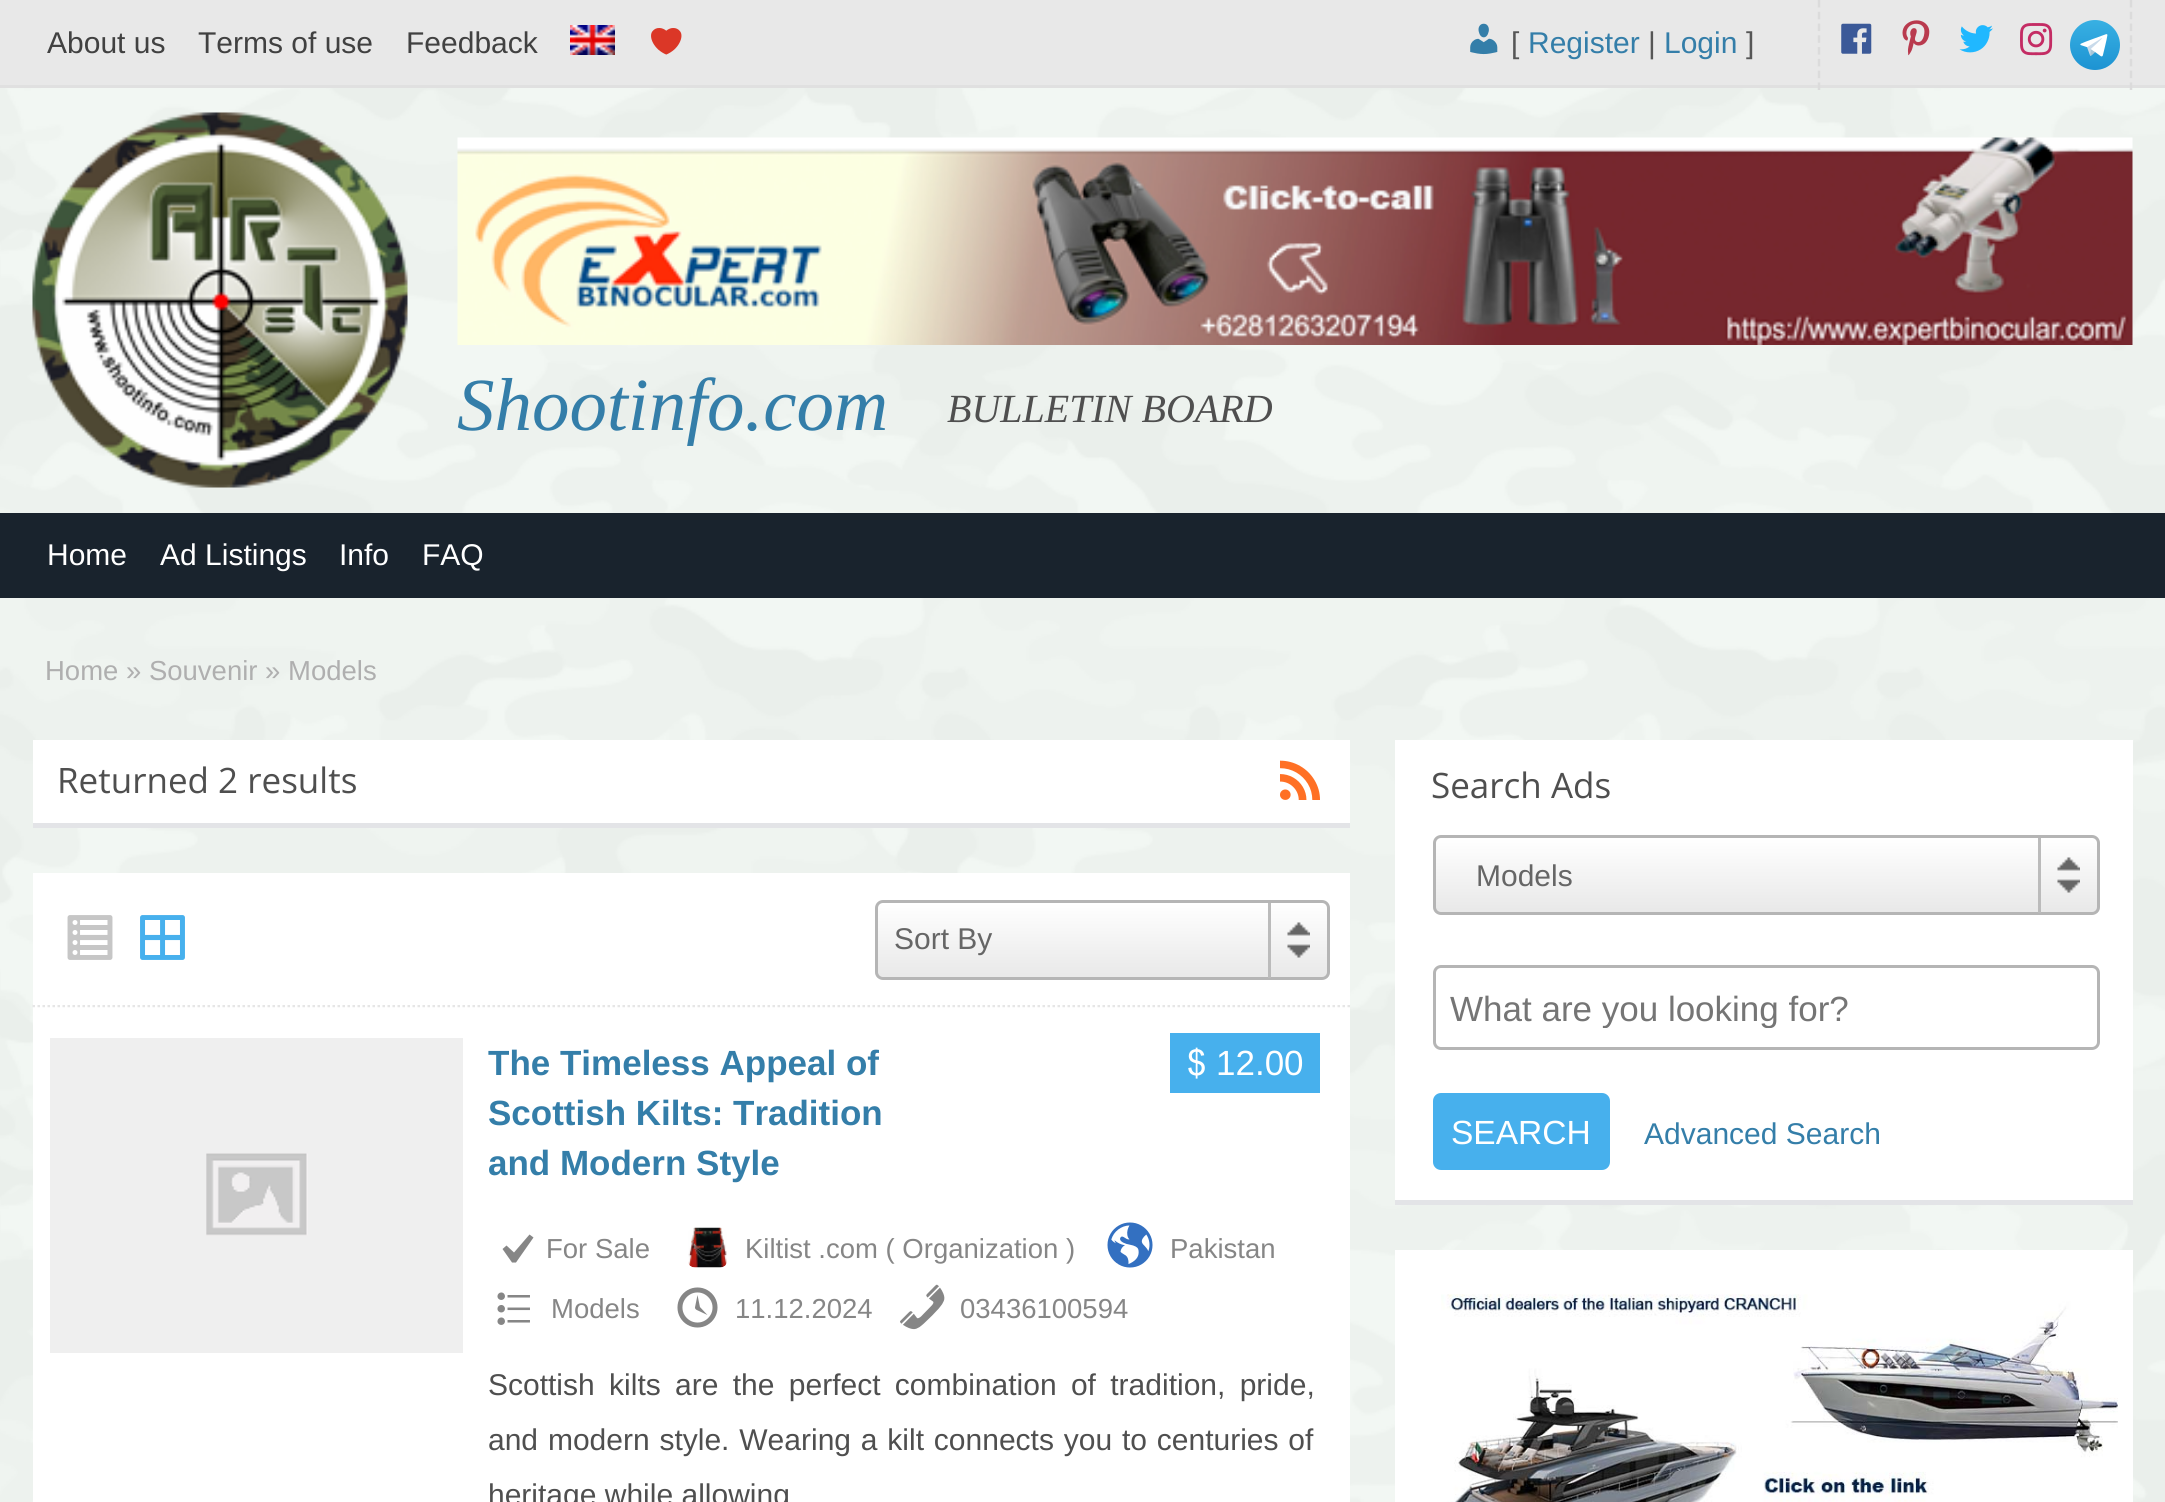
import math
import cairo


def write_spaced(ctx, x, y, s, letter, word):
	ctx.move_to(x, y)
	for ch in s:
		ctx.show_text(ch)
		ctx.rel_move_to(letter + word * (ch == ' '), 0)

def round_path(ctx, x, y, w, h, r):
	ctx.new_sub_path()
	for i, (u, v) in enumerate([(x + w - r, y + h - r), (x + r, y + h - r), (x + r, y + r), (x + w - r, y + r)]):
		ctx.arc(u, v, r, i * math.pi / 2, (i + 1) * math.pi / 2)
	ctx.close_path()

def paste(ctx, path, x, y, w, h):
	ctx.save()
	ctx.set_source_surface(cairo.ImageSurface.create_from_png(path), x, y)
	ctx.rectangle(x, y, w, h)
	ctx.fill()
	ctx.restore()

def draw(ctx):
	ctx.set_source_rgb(0.953, 0.973, 0.957)
	ctx.paint()
	paste(ctx, 'media/1.png', 0, 88, 2165, 1414)
	ctx.set_source_rgb(0.91, 0.91, 0.91)
	ctx.rectangle(0, 0, 2165, 85)
	ctx.fill()
	ctx.set_source_rgb(0.878, 0.878, 0.878)
	ctx.rectangle(0, 85, 2165, 3)
	ctx.fill()
	ctx.select_font_face('Liberation Sans')
	ctx.set_font_size(30)
	ctx.set_source_rgb(0.255, 0.255, 0.255)
	for x, y, s in [
		(47, 53, 'About us'),
		(198, 53, 'Terms of use'),
		(406, 53, 'Feedback'),
	]:
		ctx.move_to(x, y)
		ctx.show_text(s)
	paste(ctx, 'media/2.png', 570, 25, 45, 30)
	paste(ctx, 'media/3.png', 651, 28, 31, 27)
	paste(ctx, 'media/4.png', 1470, 23, 28, 32)
	ctx.set_source_rgb(0.337, 0.337, 0.337)
	ctx.move_to(1511, 53)
	ctx.show_text('[')
	ctx.set_source_rgb(0.204, 0.494, 0.663)
	ctx.move_to(1528, 53)
	ctx.show_text('Register')
	ctx.set_source_rgb(0.337, 0.337, 0.337)
	ctx.move_to(1648, 53)
	ctx.show_text('|')
	ctx.set_source_rgb(0.204, 0.494, 0.663)
	ctx.move_to(1664, 53)
	ctx.show_text('Login')
	ctx.set_source_rgb(0.337, 0.337, 0.337)
	ctx.move_to(1746, 53)
	ctx.show_text(']')
	ctx.new_path()
	ctx.move_to(2131, 0)
	ctx.line_to(2131, 90)
	ctx.set_source_rgb(0.859, 0.859, 0.859)
	ctx.set_line_width(2.5)
	ctx.set_dash([7.5, 4.28])
	ctx.stroke()
	ctx.new_path()
	ctx.move_to(1819, 0)
	ctx.line_to(1819, 90)
	ctx.stroke()
	paste(ctx, 'media/5.png', 1841, 23, 31, 31)
	paste(ctx, 'media/6.png', 1902, 20, 28, 36)
	paste(ctx, 'media/7.png', 1959, 25, 34, 28)
	paste(ctx, 'media/8.png', 2020, 23, 33, 33)
	paste(ctx, 'media/9.png', 2070, 20, 50, 50)
	paste(ctx, 'media/10.png', 32, 112, 376, 376)
	paste(ctx, 'media/11.png', 457, 137, 1676, 208)
	ctx.select_font_face('Liberation Serif', cairo.FONT_SLANT_ITALIC)
	ctx.set_font_size(75)
	ctx.set_source_rgb(0.204, 0.494, 0.663)
	ctx.move_to(457, 430)
	ctx.show_text('Shootinfo.com')
	ctx.set_font_size(40)
	ctx.set_source_rgb(0.31, 0.31, 0.31)
	ctx.move_to(947, 422)
	ctx.show_text('BULLETIN BOARD')
	ctx.set_source_rgb(0.098, 0.137, 0.176)
	ctx.rectangle(0, 513, 2165, 85)
	ctx.fill()
	ctx.select_font_face('Liberation Sans')
	ctx.set_font_size(30)
	ctx.set_source_rgb(1, 1, 1)
	for x, y, s in [
		(47, 565, 'Home'),
		(160, 565, 'Ad Listings'),
		(339, 565, 'Info'),
		(422, 565, 'FAQ'),
	]:
		ctx.move_to(x, y)
		ctx.show_text(s)
	ctx.set_font_size(27.5)
	ctx.set_source_rgb(0.686, 0.686, 0.686)
	ctx.move_to(45, 680)
	ctx.show_text('Home » Souvenir » Models')
	ctx.set_source_rgb(0.89, 0.894, 0.906)
	ctx.rectangle(33, 823, 1317, 5)
	ctx.fill()
	ctx.set_source_rgb(1, 1, 1)
	ctx.rectangle(33, 740, 1317, 83)
	ctx.fill()
	ctx.select_font_face('Open Sans')
	ctx.set_font_size(35)
	ctx.set_source_rgb(0.31, 0.31, 0.31)
	ctx.move_to(57, 793)
	ctx.show_text('Returned 2 results')
	paste(ctx, 'media/12.png', 1280, 760, 40, 40)
	ctx.set_source_rgb(1, 1, 1)
	ctx.rectangle(33, 1005, 1317, 497)
	ctx.fill()
	ctx.new_path()
	ctx.move_to(32.5, 1006)
	ctx.line_to(1350, 1006)
	ctx.set_source_rgb(0.902, 0.902, 0.902)
	ctx.set_dash([2.5, 2.5])
	ctx.stroke()
	ctx.set_source_rgb(1, 1, 1)
	ctx.rectangle(33, 873, 1317, 132)
	ctx.fill()
	paste(ctx, 'media/13.png', 67, 915, 46, 45)
	paste(ctx, 'media/14.png', 140, 915, 45, 45)
	ctx.save()
	round_path(ctx, 875, 900, 455, 80, 8)
	ctx.clip()
	gradient = cairo.LinearGradient(1103, 903, 1103, 978)
	gradient.add_color_stop_rgba(0, 1, 1, 1, 1)
	gradient.add_color_stop_rgba(1, 0.91, 0.91, 0.91, 1)
	ctx.set_source(gradient)
	ctx.rectangle(875, 903, 455, 75)
	ctx.fill()
	ctx.restore()
	round_path(ctx, 876.5, 901.5, 452, 77, 6.5)
	ctx.set_source_rgb(0.71, 0.71, 0.71)
	ctx.set_line_width(3)
	ctx.set_dash([])
	ctx.stroke()
	ctx.select_font_face('Liberation Sans')
	ctx.set_font_size(30)
	ctx.set_source_rgb(0.4, 0.4, 0.4)
	ctx.move_to(894, 949)
	ctx.show_text('Sort By')
	paste(ctx, 'media/15.png', 1287, 922, 23, 36)
	ctx.set_source_rgb(0.733, 0.733, 0.733)
	ctx.rectangle(1268, 903, 3, 75)
	ctx.fill()
	ctx.set_source_rgb(0.937, 0.937, 0.937)
	ctx.rectangle(50, 1038, 413, 315)
	ctx.fill()
	paste(ctx, 'media/16.png', 206, 1153, 102, 83)
	ctx.select_font_face('Liberation Sans', cairo.FONT_SLANT_NORMAL, cairo.FONT_WEIGHT_BOLD)
	ctx.set_font_size(35)
	ctx.set_source_rgb(0.204, 0.494, 0.663)
	for x, y, s in [
		(488, 1075, 'The Timeless Appeal of'),
		(488, 1125, 'Scottish Kilts: Tradition'),
		(488, 1175, 'and Modern Style'),
	]:
		ctx.move_to(x, y)
		ctx.show_text(s)
	ctx.set_source_rgb(0.278, 0.69, 0.929)
	ctx.rectangle(1170, 1033, 150, 60)
	ctx.fill()
	ctx.select_font_face('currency')
	ctx.set_source_rgb(1, 1, 1)
	ctx.move_to(1187, 1075)
	ctx.show_text('$')
	ctx.select_font_face('Liberation Sans')
	ctx.move_to(1216, 1075)
	ctx.show_text('12.00')
	ctx.set_source_rgb(0.525, 0.525, 0.525)
	ctx.new_path()
	ctx.move_to(529.5, 1234.5)
	ctx.line_to(533.5, 1237.5)
	ctx.line_to(516, 1262.5)
	ctx.line_to(512, 1262.5)
	ctx.line_to(502.5, 1249)
	ctx.line_to(506.5, 1245.5)
	ctx.line_to(514, 1252.5)
	ctx.close_path()
	ctx.fill()
	ctx.set_font_size(27.5)
	ctx.move_to(546, 1258)
	ctx.show_text('For Sale')
	paste(ctx, 'media/17.png', 688, 1227, 39, 41)
	ctx.move_to(745, 1258)
	ctx.show_text('Kiltist .com ( Organization )')
	paste(ctx, 'media/18.png', 1107, 1222, 46, 46)
	ctx.move_to(1170, 1258)
	ctx.show_text('Pakistan')
	paste(ctx, 'media/19.png', 497, 1292, 33, 33)
	ctx.move_to(551, 1318)
	ctx.show_text('Models')
	paste(ctx, 'media/20.png', 677, 1287, 41, 41)
	ctx.move_to(735, 1318)
	ctx.show_text('11.12.2024')
	paste(ctx, 'media/21.png', 900, 1284, 45, 46)
	ctx.move_to(960, 1318)
	ctx.show_text('03436100594')
	ctx.set_font_size(30)
	ctx.set_source_rgb(0.31, 0.31, 0.31)
	write_spaced(ctx, 488, 1395, 'Scottish kilts are the perfect combination of tradition, pride,', 0, 6)
	write_spaced(ctx, 488, 1450, 'and modern style. Wearing a kilt connects you to centuries of', 0, 1.5)
	ctx.move_to(488, 1505)
	ctx.show_text('heritage while allowing')
	ctx.set_source_rgb(0.89, 0.894, 0.906)
	ctx.new_path()
	ctx.move_to(1395, 1200)
	ctx.line_to(1395, 1205)
	ctx.line_to(2133, 1205)
	ctx.line_to(2133, 745)
	ctx.line_to(2132, 745)
	ctx.line_to(2132, 1200)
	ctx.close_path()
	ctx.fill()
	ctx.set_source_rgb(1, 1, 1)
	ctx.rectangle(1395, 740, 738, 460)
	ctx.fill()
	ctx.select_font_face('Open Sans')
	ctx.set_font_size(35)
	ctx.set_source_rgb(0.31, 0.31, 0.31)
	ctx.move_to(1431, 798)
	ctx.show_text('Search Ads')
	ctx.save()
	round_path(ctx, 1433, 835, 667, 80, 8)
	ctx.clip()
	gradient = cairo.LinearGradient(1766, 838, 1766, 913)
	gradient.add_color_stop_rgba(0, 1, 1, 1, 1)
	gradient.add_color_stop_rgba(1, 0.91, 0.91, 0.91, 1)
	ctx.set_source(gradient)
	ctx.rectangle(1433, 838, 667, 75)
	ctx.fill()
	ctx.restore()
	round_path(ctx, 1434.5, 836.5, 664, 77, 6.5)
	ctx.set_source_rgb(0.71, 0.71, 0.71)
	ctx.stroke()
	ctx.select_font_face('Liberation Sans')
	ctx.set_font_size(30)
	ctx.set_source_rgb(0.4, 0.4, 0.4)
	ctx.move_to(1476, 886)
	ctx.show_text('Models')
	paste(ctx, 'media/15.png', 2057, 857, 23, 36)
	ctx.set_source_rgb(0.733, 0.733, 0.733)
	ctx.rectangle(2038, 838, 3, 75)
	ctx.fill()
	round_path(ctx, 1434.5, 966.5, 664, 82, 6.5)
	ctx.set_source_rgb(0.71, 0.71, 0.71)
	ctx.stroke()
	ctx.save()
	ctx.rectangle(1450, 988, 633, 40)
	ctx.clip()
	ctx.set_font_size(35)
	ctx.set_source_rgb(0.459, 0.459, 0.459)
	ctx.move_to(1450, 1021)
	ctx.show_text('What are you looking for?')
	ctx.restore()
	ctx.set_source_rgb(0.278, 0.69, 0.929)
	round_path(ctx, 1433, 1093, 177, 77, 8)
	ctx.fill()
	ctx.set_font_size(33.5)
	ctx.set_source_rgb(1, 1, 1)
	ctx.move_to(1451, 1144)
	ctx.show_text('SEARCH')
	ctx.set_font_size(30)
	ctx.set_source_rgb(0.204, 0.494, 0.663)
	ctx.move_to(1644, 1144)
	ctx.show_text('Advanced Search')
	ctx.set_source_rgb(1, 1, 1)
	ctx.rectangle(1395, 1250, 738, 252)
	ctx.fill()
	paste(ctx, 'media/22.png', 1441, 1294, 677, 208)


surface = cairo.ImageSurface(cairo.FORMAT_RGB24, 2165, 1502)
ctx = cairo.Context(surface)
options = cairo.FontOptions()
options.set_hint_metrics(cairo.HINT_METRICS_OFF)
options.set_hint_style(cairo.HINT_STYLE_NONE)
ctx.set_font_options(options)
ctx.set_miter_limit(4)
draw(ctx)
surface.write_to_png('image.png')
